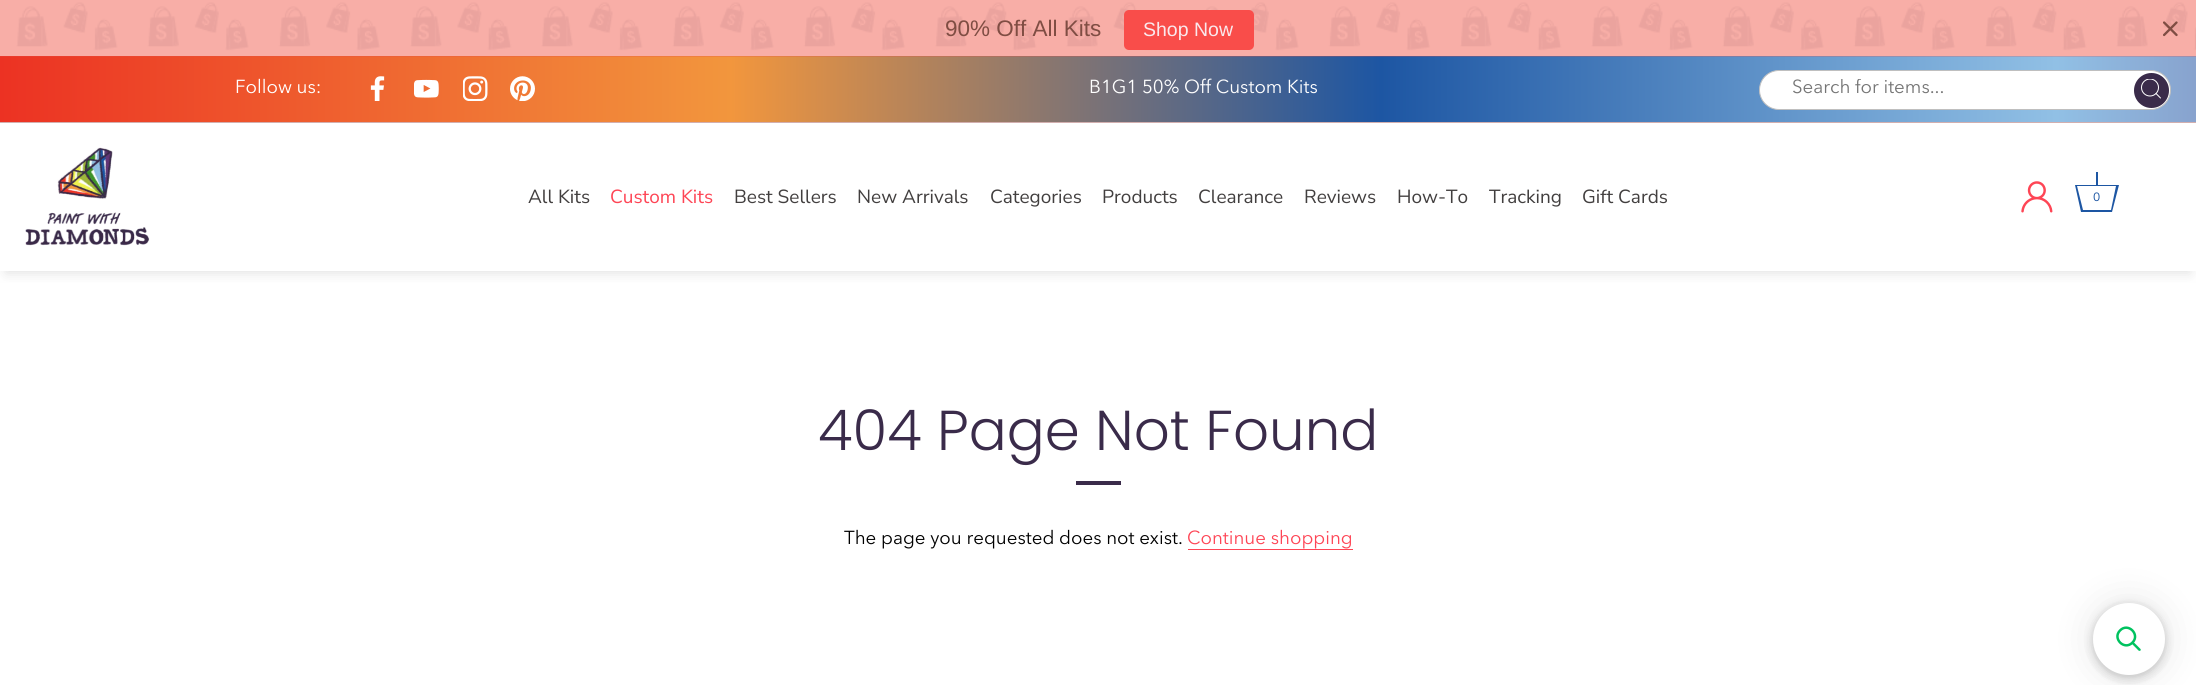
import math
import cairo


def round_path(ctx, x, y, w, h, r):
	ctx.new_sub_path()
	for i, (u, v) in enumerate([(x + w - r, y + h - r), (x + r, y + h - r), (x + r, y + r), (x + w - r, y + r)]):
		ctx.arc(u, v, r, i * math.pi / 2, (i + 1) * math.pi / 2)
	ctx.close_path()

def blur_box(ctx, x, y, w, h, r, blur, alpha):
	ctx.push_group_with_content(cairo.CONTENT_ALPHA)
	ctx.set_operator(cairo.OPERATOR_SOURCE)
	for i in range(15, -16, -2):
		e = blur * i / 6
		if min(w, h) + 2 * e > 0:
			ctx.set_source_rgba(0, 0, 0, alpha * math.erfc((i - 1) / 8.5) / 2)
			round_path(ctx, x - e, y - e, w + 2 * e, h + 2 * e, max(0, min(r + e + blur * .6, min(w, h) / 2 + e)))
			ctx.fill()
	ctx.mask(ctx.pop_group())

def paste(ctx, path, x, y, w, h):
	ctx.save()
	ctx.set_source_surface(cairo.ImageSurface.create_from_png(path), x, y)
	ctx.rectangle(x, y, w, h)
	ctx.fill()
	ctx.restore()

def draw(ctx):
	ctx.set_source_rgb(1, 1, 1)
	ctx.paint()
	ctx.save()
	ctx.rectangle(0, 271, 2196, 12)
	ctx.clip()
	ctx.set_source_rgb(0.71, 0.71, 0.71)
	blur_box(ctx, 6, 70, 2184, 203, 0, 6, 0.4)
	ctx.restore()
	gradient = cairo.LinearGradient(0, 89, 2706, 89)
	gradient.add_color_stop_rgba(0, 0.925, 0.196, 0.137, 1)
	gradient.add_color_stop_rgba(0.27, 0.949, 0.588, 0.239, 1)
	gradient.add_color_stop_rgba(0.51, 0.114, 0.337, 0.639, 1)
	gradient.add_color_stop_rgba(0.76, 0.569, 0.753, 0.898, 1)
	gradient.add_color_stop_rgba(1, 0.396, 0.216, 0.475, 1)
	ctx.set_source(gradient)
	ctx.rectangle(0, 56, 2196, 66)
	ctx.fill()
	paste(ctx, 'media/1.png', 0, 0, 2196, 57)
	ctx.select_font_face('Liberation Sans')
	ctx.set_font_size(22.5)
	ctx.set_source_rgb(0.498, 0.302, 0.263)
	ctx.move_to(945, 36)
	ctx.show_text('90% Off All Kits')
	ctx.set_source_rgb(0.976, 0.302, 0.29)
	round_path(ctx, 1124, 10, 130, 40, 5)
	ctx.fill()
	ctx.set_font_size(19.5)
	ctx.set_source_rgb(0.98, 0.91, 0.922)
	ctx.move_to(1143, 36)
	ctx.show_text('Shop Now')
	paste(ctx, 'media/2.png', 2163, 21, 15, 16)
	ctx.set_source_rgb(0.824, 0.686, 0.686)
	ctx.rectangle(0, 122, 2196, 1)
	ctx.fill()
	ctx.select_font_face('Avenir Next')
	ctx.set_font_size(18.75)
	ctx.set_source_rgb(1, 1, 1)
	ctx.move_to(235, 93)
	ctx.show_text('Follow us:')
	paste(ctx, 'media/3.png', 370, 76, 15, 25)
	paste(ctx, 'media/4.png', 414, 79, 25, 19)
	paste(ctx, 'media/5.png', 463, 76, 25, 25)
	paste(ctx, 'media/6.png', 510, 76, 25, 25)
	ctx.move_to(1089, 93)
	ctx.show_text('B1G1 50% Off Custom Kits')
	round_path(ctx, 1759.5, 70.5, 411, 39, 19.5)
	ctx.fill_preserve()
	ctx.set_source_rgb(0.749, 0.749, 0.749)
	ctx.set_line_width(1)
	ctx.stroke()
	ctx.save()
	ctx.rectangle(1793, 79, 346, 22)
	ctx.clip()
	ctx.set_source_rgb(0.459, 0.459, 0.459)
	ctx.move_to(1792, 93)
	ctx.show_text('Search for items...')
	ctx.restore()
	ctx.set_source_rgb(0.227, 0.169, 0.29)
	ctx.new_path()
	ctx.arc(2151.5, 90.5, 17.5, 0, 2 * math.pi)
	ctx.fill()
	ctx.save()
	ctx.rectangle(2141, 79, 20, 20)
	ctx.clip()
	ctx.arc(2150, 87.5, 8.5, 0, 2 * math.pi)
	ctx.set_source_rgb(1, 1, 1)
	ctx.stroke()
	ctx.restore()
	ctx.new_path()
	ctx.move_to(2160.5, 98)
	ctx.line_to(2156, 93.5)
	ctx.set_source_rgb(1, 1, 1)
	ctx.set_line_cap(cairo.LINE_CAP_ROUND)
	ctx.set_line_join(cairo.LINE_JOIN_ROUND)
	ctx.stroke()
	paste(ctx, 'media/7.png', 25, 147, 125, 99)
	ctx.select_font_face('Nunito Sans')
	ctx.set_font_size(19)
	ctx.set_source_rgb(0.259, 0.247, 0.247)
	ctx.move_to(528, 203)
	ctx.show_text('All Kits')
	ctx.set_source_rgb(0.996, 0.271, 0.333)
	ctx.move_to(610, 203)
	ctx.show_text('Custom Kits')
	ctx.set_source_rgb(0.259, 0.247, 0.247)
	for x, y, s in [
		(734, 203, 'Best Sellers'),
		(857, 203, 'New Arrivals'),
		(990, 203, 'Categories'),
		(1102, 203, 'Products'),
		(1198, 203, 'Clearance'),
		(1304, 203, 'Reviews'),
		(1397, 203, 'How-To'),
		(1489, 203, 'Tracking'),
		(1582, 203, 'Gift Cards'),
	]:
		ctx.move_to(x, y)
		ctx.show_text(s)
	paste(ctx, 'media/8.png', 2021, 181, 32, 32)
	ctx.set_source_rgb(0.114, 0.337, 0.639)
	ctx.rectangle(2096, 172, 2, 13)
	ctx.fill()
	ctx.new_path()
	ctx.move_to(2116, 186)
	ctx.line_to(2111, 210)
	ctx.line_to(2083, 210)
	ctx.line_to(2077, 186)
	ctx.line_to(2116, 186)
	ctx.move_to(2119, 185)
	ctx.line_to(2075, 185)
	ctx.line_to(2081, 212)
	ctx.line_to(2112, 212)
	ctx.close_path()
	ctx.fill()
	ctx.set_font_size(12)
	ctx.move_to(2093, 201)
	ctx.show_text('0')
	ctx.select_font_face('Poppins Light')
	ctx.set_font_size(56.25)
	ctx.set_source_rgb(0.227, 0.169, 0.29)
	ctx.move_to(818, 450)
	ctx.show_text('404 Page Not Found')
	ctx.rectangle(1076, 481, 45, 4)
	ctx.fill()
	ctx.select_font_face('Avenir Next')
	ctx.set_font_size(18.75)
	ctx.set_source_rgb(0, 0, 0)
	ctx.move_to(844, 544)
	ctx.show_text('The page you requested does not exist.')
	ctx.set_source_rgb(0.996, 0.271, 0.333)
	ctx.move_to(1187, 544)
	ctx.show_text('Continue shopping')
	ctx.rectangle(1188, 549, 165, 1)
	ctx.fill()
	ctx.set_source_rgb(0, 0, 0)
	blur_box(ctx, 2093, 608, 72, 72, 36, 5, 0.05)
	blur_box(ctx, 2093, 605, 72, 73, 36, 5, 0.15)
	blur_box(ctx, 2093, 603, 72, 72, 36, 19, 0.1)
	ctx.set_source_rgb(1, 1, 1)
	ctx.arc(2129, 639, 36, 0, 2 * math.pi)
	ctx.fill()
	ctx.new_path()
	ctx.move_to(2120, 630.5)
	ctx.curve_to(2128, 622, 2140.5, 634.5, 2132.5, 642.5)
	ctx.curve_to(2124.5, 651, 2112, 638.5, 2120, 630.5)
	ctx.close_path()
	ctx.set_source_rgb(0, 0.761, 0.373)
	ctx.set_line_width(2.5)
	ctx.set_line_cap(cairo.LINE_CAP_BUTT)
	ctx.set_line_join(cairo.LINE_JOIN_MITER)
	ctx.stroke()
	ctx.new_path()
	ctx.move_to(2131.5, 643.5)
	ctx.line_to(2133.5, 642)
	ctx.line_to(2140.5, 649)
	ctx.curve_to(2141.5, 650.5, 2139.5, 651.5, 2138.5, 650.5)
	ctx.close_path()
	ctx.fill()


surface = cairo.ImageSurface(cairo.FORMAT_RGB24, 2196, 685)
ctx = cairo.Context(surface)
options = cairo.FontOptions()
options.set_hint_metrics(cairo.HINT_METRICS_OFF)
options.set_hint_style(cairo.HINT_STYLE_NONE)
ctx.set_font_options(options)
ctx.set_miter_limit(4)
draw(ctx)
surface.write_to_png('image.png')
